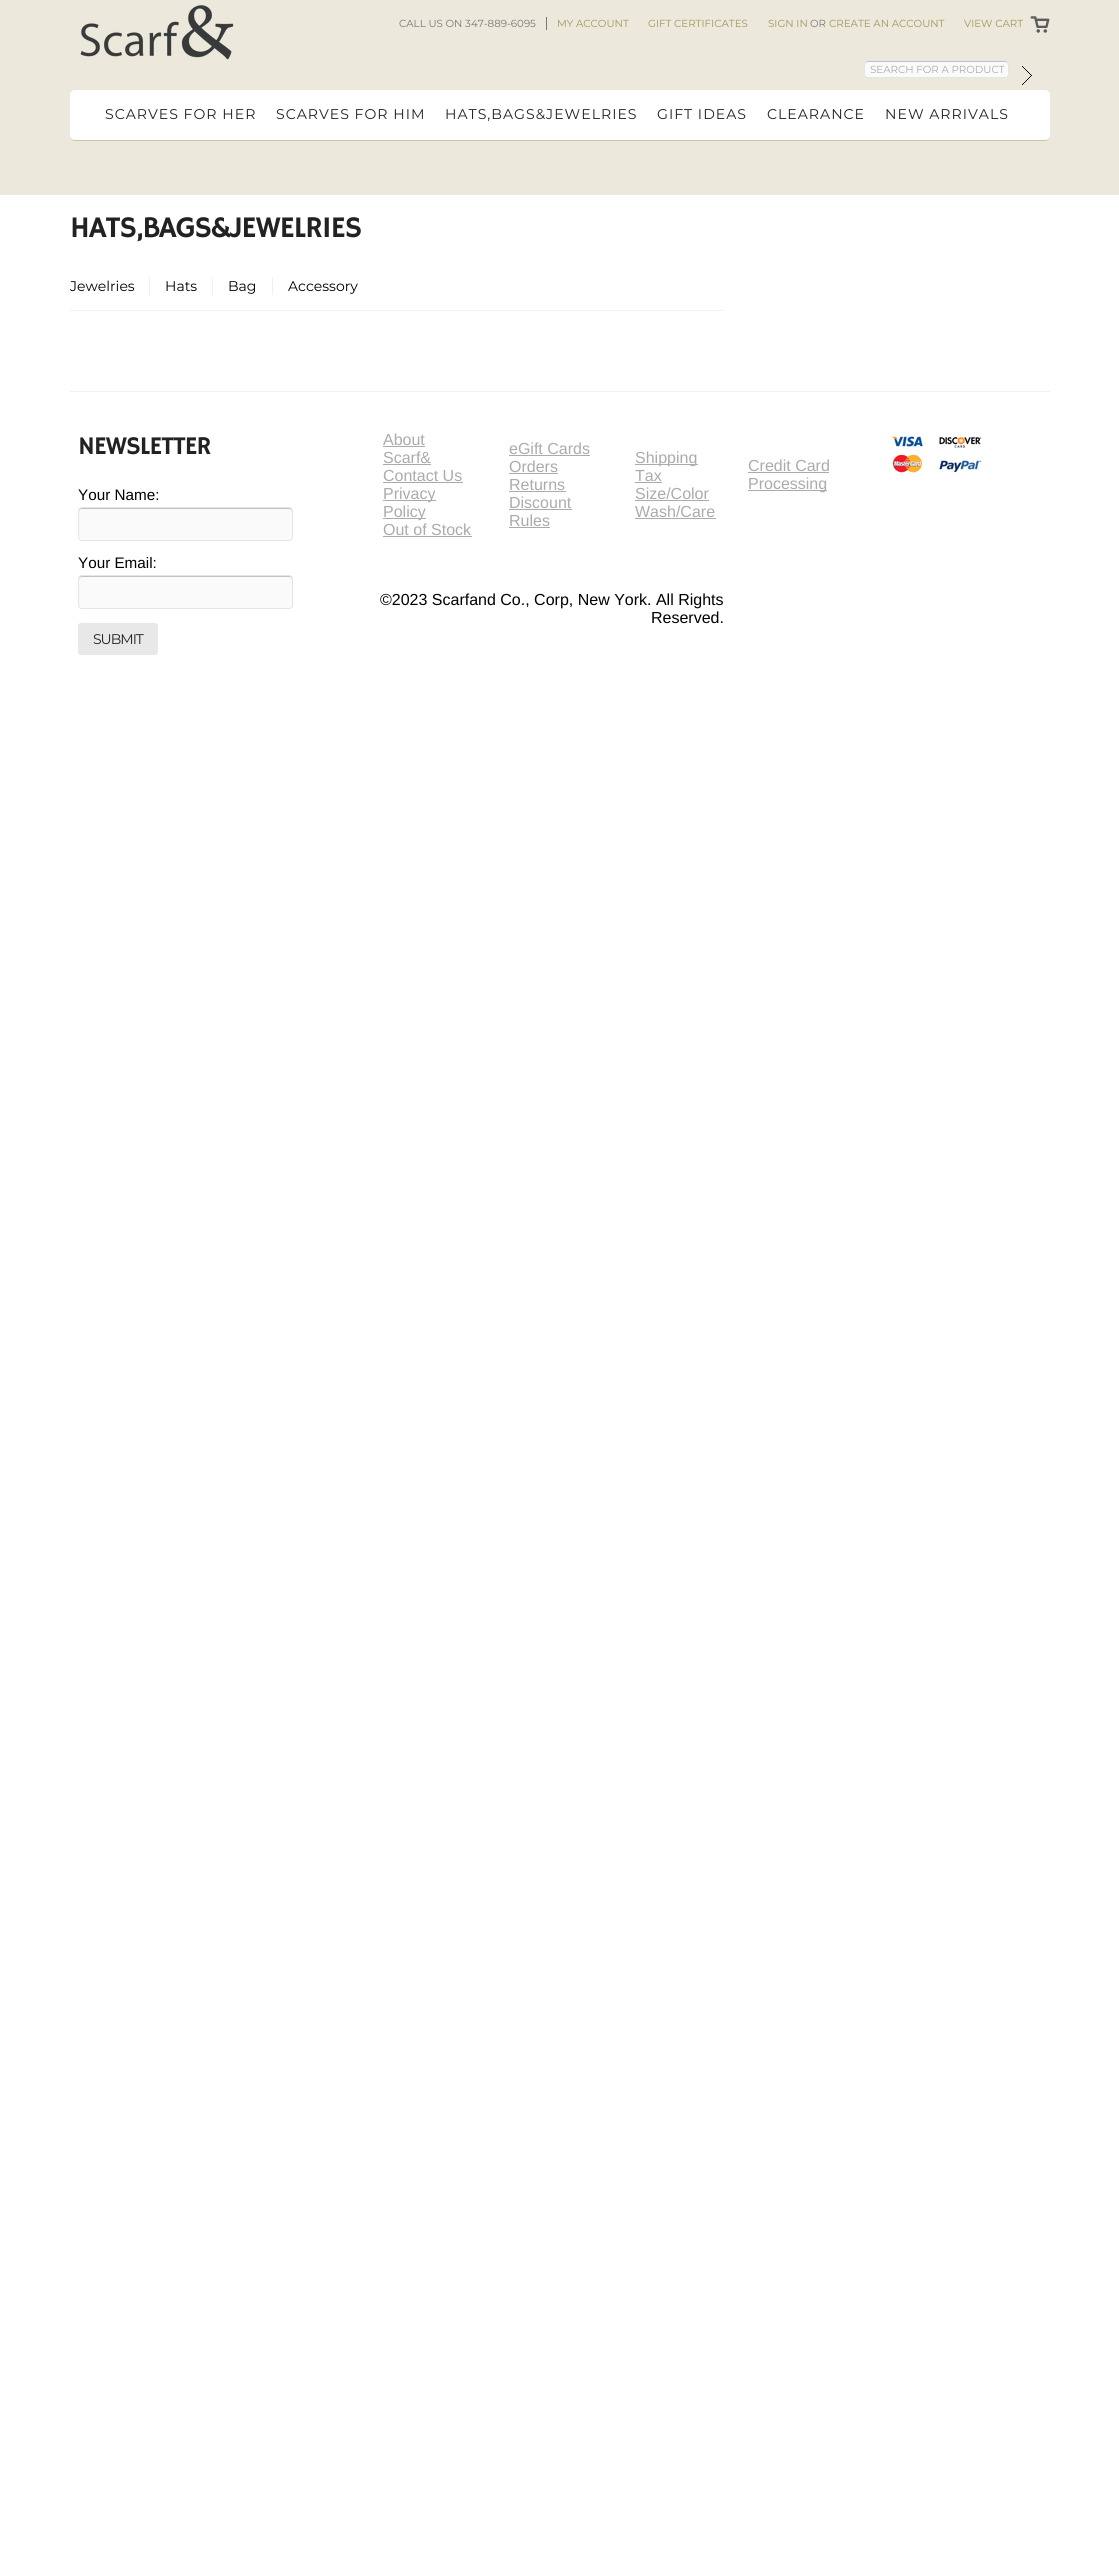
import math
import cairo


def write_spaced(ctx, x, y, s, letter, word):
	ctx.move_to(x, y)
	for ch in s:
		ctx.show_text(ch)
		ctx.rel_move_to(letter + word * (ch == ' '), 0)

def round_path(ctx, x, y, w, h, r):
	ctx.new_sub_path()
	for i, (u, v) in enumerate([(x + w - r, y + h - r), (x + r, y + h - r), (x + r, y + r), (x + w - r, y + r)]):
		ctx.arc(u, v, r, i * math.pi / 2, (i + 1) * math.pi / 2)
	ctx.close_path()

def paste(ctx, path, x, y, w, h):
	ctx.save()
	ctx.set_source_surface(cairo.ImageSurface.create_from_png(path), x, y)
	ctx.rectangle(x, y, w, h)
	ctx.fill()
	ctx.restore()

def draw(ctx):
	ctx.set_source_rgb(1, 1, 1)
	ctx.paint()
	ctx.set_source_rgb(0.922, 0.914, 0.863)
	ctx.rectangle(0, 0, 1119, 195)
	ctx.fill()
	paste(ctx, 'media/1.png', 80, 5, 154, 55)
	ctx.set_source_rgb(0.467, 0.467, 0.467)
	ctx.rectangle(546, 17, 1, 13)
	ctx.fill()
	ctx.select_font_face('Montserrat Thin')
	ctx.set_font_size(10.25)
	ctx.move_to(399, 27)
	ctx.show_text('CALL US ON 347-889-6095')
	ctx.set_source_rgb(0.627, 0.592, 0.357)
	for x, y, s in [
		(557, 27, 'MY ACCOUNT'),
		(648, 27, 'GIFT CERTIFICATES'),
		(768, 27, 'SIGN IN'),
	]:
		ctx.move_to(x, y)
		ctx.show_text(s)
	ctx.set_source_rgb(0.467, 0.467, 0.467)
	ctx.move_to(810, 27)
	ctx.show_text('OR')
	ctx.set_source_rgb(0.627, 0.592, 0.357)
	ctx.move_to(829, 27)
	ctx.show_text('CREATE AN ACCOUNT')
	paste(ctx, 'media/2.png', 1030, 16, 20, 17)
	ctx.move_to(964, 27)
	ctx.show_text('VIEW CART')
	ctx.set_source_rgb(0.98, 0.98, 0.98)
	round_path(ctx, 864, 60, 145, 18, 4)
	ctx.fill()
	ctx.set_source_rgb(0.761, 0.761, 0.761)
	ctx.new_path()
	ctx.move_to(868, 62)
	ctx.line_to(1005, 62)
	ctx.curve_to(1007, 62, 1008, 63, 1008, 65)
	ctx.line_to(1008, 64)
	ctx.curve_to(1008, 62, 1007, 61, 1005, 61)
	ctx.line_to(868, 61)
	ctx.curve_to(866, 61, 865, 62, 865, 64)
	ctx.line_to(865, 65)
	ctx.curve_to(865, 63, 866, 62, 868, 62)
	ctx.close_path()
	ctx.fill()
	round_path(ctx, 864.5, 60.5, 144, 17, 3.5)
	ctx.set_source_rgb(0.898, 0.898, 0.898)
	ctx.set_line_width(1)
	ctx.stroke()
	ctx.set_source_rgb(0.671, 0.671, 0.671)
	ctx.move_to(870, 73)
	ctx.show_text('SEARCH FOR A PRODUCT')
	paste(ctx, 'media/3.png', 1022, 66, 10, 19)
	ctx.set_source_rgb(0.792, 0.769, 0.635)
	ctx.new_path()
	ctx.move_to(70, 135)
	ctx.curve_to(70, 138, 72, 141, 75, 141)
	ctx.line_to(1045, 141)
	ctx.curve_to(1048, 141, 1050, 138, 1050, 135)
	ctx.curve_to(1050, 138, 1048, 140, 1045, 140)
	ctx.line_to(75, 140)
	ctx.curve_to(72, 140, 70, 138, 70, 135)
	ctx.close_path()
	ctx.fill()
	ctx.set_source_rgb(1, 1, 1)
	round_path(ctx, 70, 90, 980, 50, 5)
	ctx.fill()
	ctx.set_font_size(14.1)
	ctx.set_source_rgb(0.133, 0.133, 0.133)
	for x, y, s in [
		(105, 119, 'SCARVES FOR HER'),
		(276, 119, 'SCARVES FOR HIM'),
		(445, 119, 'HATS,BAGS&JEWELRIES'),
		(657, 119, 'GIFT IDEAS'),
		(767, 119, 'CLEARANCE'),
		(885, 119, 'NEW ARRIVALS'),
	]:
		write_spaced(ctx, x, y, s, 1, 0)
	ctx.select_font_face('Hammersmith One')
	ctx.set_font_size(30)
	write_spaced(ctx, 70, 237, 'HATS,BAGS&JEWELRIES', -1, 0)
	ctx.set_source_rgb(0.941, 0.941, 0.941)
	ctx.rectangle(70, 310, 653, 1)
	ctx.fill()
	ctx.select_font_face('Montserrat Thin')
	ctx.set_font_size(14)
	ctx.set_source_rgb(0, 0, 0)
	ctx.move_to(70, 291)
	ctx.show_text('Jewelries')
	ctx.set_source_rgb(0.941, 0.941, 0.941)
	ctx.rectangle(149, 277, 1, 18)
	ctx.fill()
	ctx.set_source_rgb(0, 0, 0)
	ctx.move_to(165, 291)
	ctx.show_text('Hats')
	ctx.set_source_rgb(0.941, 0.941, 0.941)
	ctx.rectangle(212, 277, 1, 18)
	ctx.fill()
	ctx.set_source_rgb(0, 0, 0)
	ctx.move_to(228, 291)
	ctx.show_text('Bag')
	ctx.set_source_rgb(0.941, 0.941, 0.941)
	ctx.rectangle(272, 277, 1, 18)
	ctx.fill()
	ctx.set_source_rgb(0, 0, 0)
	ctx.move_to(288, 291)
	ctx.show_text('Accessory')
	ctx.set_source_rgb(0.941, 0.941, 0.941)
	ctx.rectangle(70, 391, 980, 1)
	ctx.fill()
	ctx.select_font_face('Hammersmith One')
	ctx.set_font_size(25.5)
	ctx.set_source_rgb(0.133, 0.133, 0.133)
	write_spaced(ctx, 78, 454, 'NEWSLETTER', -1, 0)
	ctx.select_font_face('Liberation Sans')
	ctx.set_font_size(15.25)
	ctx.set_source_rgb(0, 0, 0)
	ctx.move_to(78, 500)
	ctx.show_text('Your Name:')
	ctx.set_source_rgb(0.98, 0.98, 0.98)
	round_path(ctx, 78, 507, 215, 34, 4)
	ctx.fill()
	ctx.set_source_rgb(0.761, 0.761, 0.761)
	ctx.new_path()
	ctx.move_to(82, 509)
	ctx.line_to(289, 509)
	ctx.curve_to(291, 509, 292, 510, 292, 512)
	ctx.line_to(292, 511)
	ctx.curve_to(292, 509, 291, 508, 289, 508)
	ctx.line_to(82, 508)
	ctx.curve_to(80, 508, 79, 509, 79, 511)
	ctx.line_to(79, 512)
	ctx.curve_to(79, 510, 80, 509, 82, 509)
	ctx.close_path()
	ctx.fill()
	round_path(ctx, 78.5, 507.5, 214, 33, 3.5)
	ctx.set_source_rgb(0.898, 0.898, 0.898)
	ctx.stroke()
	ctx.set_source_rgb(0, 0, 0)
	ctx.move_to(78, 568)
	ctx.show_text('Your Email:')
	ctx.set_source_rgb(0.98, 0.98, 0.98)
	round_path(ctx, 78, 575, 215, 34, 4)
	ctx.fill()
	ctx.set_source_rgb(0.761, 0.761, 0.761)
	ctx.new_path()
	ctx.move_to(82, 577)
	ctx.line_to(289, 577)
	ctx.curve_to(291, 577, 292, 578, 292, 580)
	ctx.line_to(292, 579)
	ctx.curve_to(292, 577, 291, 576, 289, 576)
	ctx.line_to(82, 576)
	ctx.curve_to(80, 576, 79, 577, 79, 579)
	ctx.line_to(79, 580)
	ctx.curve_to(79, 578, 80, 577, 82, 577)
	ctx.close_path()
	ctx.fill()
	round_path(ctx, 78.5, 575.5, 214, 33, 3.5)
	ctx.set_source_rgb(0.898, 0.898, 0.898)
	ctx.stroke()
	ctx.set_source_rgb(0.91, 0.91, 0.91)
	round_path(ctx, 78, 623, 80, 32, 3)
	ctx.fill()
	ctx.select_font_face('Montserrat Thin')
	ctx.set_font_size(14)
	ctx.set_source_rgb(0.133, 0.133, 0.133)
	write_spaced(ctx, 93, 644, 'SUBMIT', -1, 0)
	ctx.select_font_face('Liberation Sans')
	ctx.set_font_size(16)
	ctx.set_source_rgb(0.671, 0.671, 0.671)
	ctx.move_to(383, 445)
	ctx.show_text('About')
	ctx.rectangle(383, 446, 42, 1)
	ctx.fill()
	ctx.move_to(383, 463)
	ctx.show_text('Scarf&')
	ctx.rectangle(383, 464, 48, 1)
	ctx.fill()
	ctx.move_to(383, 481)
	ctx.show_text('Contact Us')
	ctx.rectangle(383, 482, 80, 1)
	ctx.fill()
	ctx.rectangle(383, 500, 53, 1)
	ctx.fill()
	ctx.move_to(383, 499)
	ctx.show_text('Privacy')
	ctx.rectangle(383, 518, 43, 1)
	ctx.fill()
	ctx.move_to(383, 517)
	ctx.show_text('Policy')
	ctx.move_to(383, 535)
	ctx.show_text('Out of Stock')
	ctx.rectangle(383, 536, 89, 1)
	ctx.fill()
	ctx.move_to(509, 454)
	ctx.show_text('eGift Cards')
	ctx.rectangle(509, 455, 81, 1)
	ctx.fill()
	ctx.move_to(509, 472)
	ctx.show_text('Orders')
	ctx.rectangle(509, 473, 49, 1)
	ctx.fill()
	ctx.move_to(509, 490)
	ctx.show_text('Returns')
	ctx.rectangle(509, 491, 57, 1)
	ctx.fill()
	ctx.move_to(509, 508)
	ctx.show_text('Discount')
	ctx.rectangle(509, 509, 63, 1)
	ctx.fill()
	ctx.move_to(509, 526)
	ctx.show_text('Rules')
	ctx.rectangle(509, 527, 41, 1)
	ctx.fill()
	ctx.rectangle(635, 464, 63, 1)
	ctx.fill()
	ctx.move_to(635, 463)
	ctx.show_text('Shipping')
	ctx.move_to(635, 481)
	ctx.show_text('Tax')
	ctx.rectangle(635, 482, 27, 1)
	ctx.fill()
	ctx.move_to(635, 499)
	ctx.show_text('Size/Color')
	ctx.rectangle(635, 500, 74, 1)
	ctx.fill()
	ctx.move_to(635, 517)
	ctx.show_text('Wash/Care')
	ctx.rectangle(635, 518, 81, 1)
	ctx.fill()
	ctx.move_to(748, 471)
	ctx.show_text('Credit Card')
	ctx.rectangle(748, 472, 81, 1)
	ctx.fill()
	ctx.rectangle(748, 490, 79, 1)
	ctx.fill()
	ctx.move_to(748, 489)
	ctx.show_text('Processing')
	paste(ctx, 'media/4.png', 891, 436, 91, 37)
	ctx.set_source_rgb(0, 0, 0)
	ctx.move_to(380, 605)
	ctx.show_text('©2023 Scarfand Co., Corp, New York. All Rights')
	ctx.move_to(651, 623)
	ctx.show_text('Reserved.')


surface = cairo.ImageSurface(cairo.FORMAT_RGB24, 1119, 2567)
ctx = cairo.Context(surface)
options = cairo.FontOptions()
options.set_hint_metrics(cairo.HINT_METRICS_OFF)
options.set_hint_style(cairo.HINT_STYLE_NONE)
ctx.set_font_options(options)
ctx.set_miter_limit(4)
draw(ctx)
surface.write_to_png('image.png')
